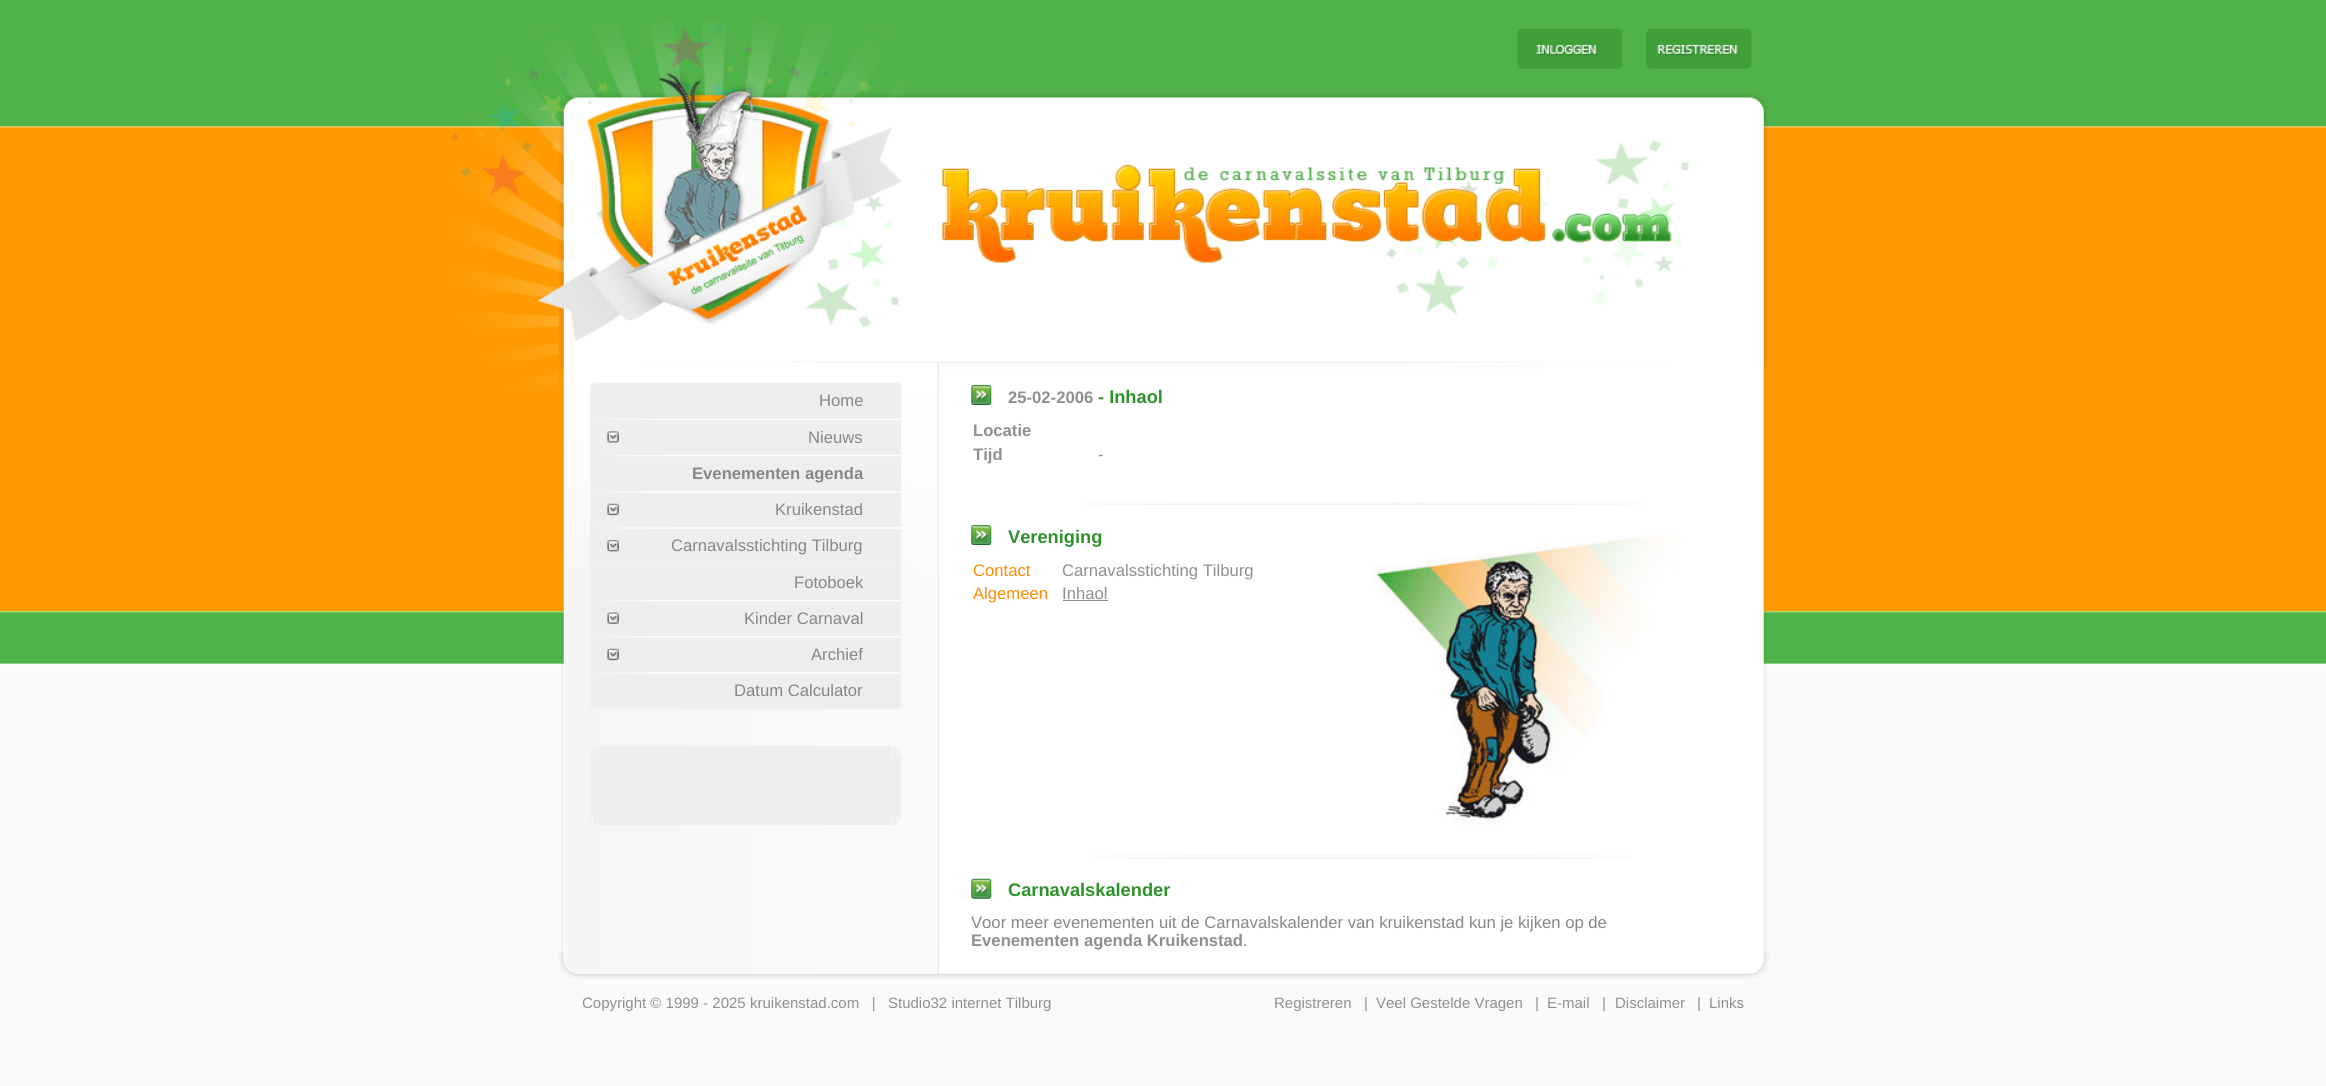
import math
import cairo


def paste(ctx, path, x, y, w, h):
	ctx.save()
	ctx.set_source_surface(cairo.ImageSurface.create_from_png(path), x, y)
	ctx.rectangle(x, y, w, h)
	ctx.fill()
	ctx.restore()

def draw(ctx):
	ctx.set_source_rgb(0.98, 0.98, 0.98)
	ctx.paint()
	paste(ctx, 'media/1.png', 0, 0, 2326, 665)
	paste(ctx, 'media/2.png', 1517, 28, 106, 41)
	paste(ctx, 'media/3.png', 1646, 28, 106, 41)
	paste(ctx, 'media/4.png', 559, 92, 1210, 278)
	paste(ctx, 'media/5.png', 451, 21, 455, 370)
	paste(ctx, 'media/6.png', 561, 370, 1206, 580)
	paste(ctx, 'media/7.png', 565, 370, 373, 199)
	paste(ctx, 'media/8.png', 590, 382, 312, 37)
	ctx.select_font_face('Liberation Sans')
	ctx.set_font_size(16.65)
	ctx.set_source_rgb(0.529, 0.529, 0.529)
	ctx.move_to(819, 406)
	ctx.show_text('Home')
	paste(ctx, 'media/9.png', 590, 419, 311, 36)
	ctx.move_to(808, 443)
	ctx.show_text('Nieuws')
	paste(ctx, 'media/10.png', 590, 455, 311, 36)
	ctx.select_font_face('Liberation Sans', cairo.FONT_SLANT_NORMAL, cairo.FONT_WEIGHT_BOLD)
	ctx.move_to(692, 479)
	ctx.show_text('Evenementen agenda')
	paste(ctx, 'media/11.png', 590, 491, 311, 37)
	ctx.select_font_face('Liberation Sans')
	ctx.move_to(775, 515)
	ctx.show_text('Kruikenstad')
	paste(ctx, 'media/12.png', 590, 527, 311, 37)
	ctx.move_to(671, 551)
	ctx.show_text('Carnavalsstichting Tilburg')
	ctx.set_source_rgb(0.933, 0.933, 0.933)
	ctx.rectangle(590, 564, 311, 36)
	ctx.fill()
	ctx.set_source_rgb(0.529, 0.529, 0.529)
	ctx.move_to(794, 588)
	ctx.show_text('Fotoboek')
	paste(ctx, 'media/13.png', 590, 600, 311, 36)
	ctx.move_to(744, 624)
	ctx.show_text('Kinder Carnaval')
	paste(ctx, 'media/14.png', 590, 636, 311, 37)
	ctx.move_to(811, 660)
	ctx.show_text('Archief')
	paste(ctx, 'media/15.png', 590, 672, 311, 37)
	ctx.move_to(734, 696)
	ctx.show_text('Datum Calculator')
	ctx.set_source_rgb(0.933, 0.933, 0.933)
	ctx.rectangle(590, 756, 311, 59)
	ctx.fill()
	ctx.set_source_rgb(0.945, 0.945, 0.945)
	ctx.rectangle(596, 746, 1, 1)
	ctx.fill()
	ctx.set_source_rgb(0.937, 0.937, 0.937)
	ctx.rectangle(598, 746, 1, 1)
	ctx.fill()
	ctx.set_source_rgb(0.933, 0.933, 0.933)
	ctx.rectangle(599, 746, 1, 1)
	ctx.fill()
	ctx.set_source_rgb(0.941, 0.941, 0.941)
	ctx.rectangle(593, 749, 1, 1)
	ctx.fill()
	ctx.set_source_rgb(0.945, 0.945, 0.945)
	ctx.rectangle(594, 748, 1, 1)
	ctx.fill()
	ctx.set_source_rgb(0.933, 0.933, 0.933)
	ctx.rectangle(595, 748, 1, 8)
	ctx.rectangle(596, 748, 1, 8)
	ctx.rectangle(598, 748, 2, 8)
	ctx.fill()
	ctx.set_source_rgb(0.945, 0.945, 0.945)
	ctx.rectangle(591, 750, 1, 1)
	ctx.fill()
	ctx.set_source_rgb(0.933, 0.933, 0.933)
	ctx.rectangle(593, 750, 1, 6)
	ctx.rectangle(594, 749, 1, 7)
	ctx.rectangle(591, 751, 1, 1)
	ctx.fill()
	ctx.set_source_rgb(0.945, 0.945, 0.945)
	ctx.rectangle(590, 753, 1, 1)
	ctx.fill()
	ctx.set_source_rgb(0.933, 0.933, 0.933)
	ctx.rectangle(591, 753, 1, 3)
	ctx.fill()
	ctx.set_source_rgb(0.937, 0.937, 0.937)
	ctx.rectangle(590, 754, 1, 1)
	ctx.fill()
	ctx.set_source_rgb(0.933, 0.933, 0.933)
	ctx.rectangle(590, 755, 1, 1)
	ctx.rectangle(600, 746, 291, 10)
	ctx.rectangle(891, 746, 1, 1)
	ctx.fill()
	ctx.set_source_rgb(0.941, 0.941, 0.941)
	ctx.rectangle(893, 746, 1, 1)
	ctx.fill()
	ctx.set_source_rgb(0.953, 0.953, 0.953)
	ctx.rectangle(894, 746, 1, 1)
	ctx.fill()
	ctx.set_source_rgb(0.933, 0.933, 0.933)
	ctx.rectangle(891, 748, 1, 8)
	ctx.rectangle(893, 748, 2, 8)
	ctx.rectangle(895, 748, 1, 8)
	ctx.fill()
	ctx.set_source_rgb(0.953, 0.953, 0.953)
	ctx.rectangle(896, 748, 1, 1)
	ctx.fill()
	ctx.set_source_rgb(0.933, 0.933, 0.933)
	ctx.rectangle(896, 749, 1, 7)
	ctx.fill()
	ctx.set_source_rgb(0.945, 0.945, 0.945)
	ctx.rectangle(898, 749, 1, 1)
	ctx.fill()
	ctx.set_source_rgb(0.933, 0.933, 0.933)
	ctx.rectangle(898, 750, 1, 6)
	ctx.fill()
	ctx.set_source_rgb(0.953, 0.953, 0.953)
	ctx.rectangle(899, 750, 1, 1)
	ctx.fill()
	ctx.set_source_rgb(0.933, 0.933, 0.933)
	ctx.rectangle(899, 751, 1, 1)
	ctx.rectangle(899, 753, 1, 3)
	ctx.fill()
	ctx.set_source_rgb(0.953, 0.953, 0.953)
	ctx.rectangle(900, 753, 1, 1)
	ctx.fill()
	ctx.set_source_rgb(0.941, 0.941, 0.941)
	ctx.rectangle(900, 754, 1, 1)
	ctx.fill()
	ctx.set_source_rgb(0.933, 0.933, 0.933)
	ctx.rectangle(900, 755, 1, 1)
	ctx.rectangle(590, 815, 1, 1)
	ctx.rectangle(591, 815, 1, 5)
	ctx.rectangle(593, 815, 1, 6)
	ctx.rectangle(594, 815, 1, 8)
	ctx.rectangle(595, 815, 1, 9)
	ctx.rectangle(596, 815, 1, 9)
	ctx.rectangle(598, 815, 1, 9)
	ctx.rectangle(599, 815, 1, 10)
	ctx.fill()
	ctx.set_source_rgb(0.937, 0.937, 0.937)
	ctx.rectangle(590, 816, 1, 1)
	ctx.fill()
	ctx.set_source_rgb(0.945, 0.945, 0.945)
	ctx.rectangle(590, 818, 1, 1)
	ctx.rectangle(591, 820, 1, 1)
	ctx.fill()
	ctx.set_source_rgb(0.941, 0.941, 0.941)
	ctx.rectangle(593, 821, 1, 1)
	ctx.fill()
	ctx.set_source_rgb(0.945, 0.945, 0.945)
	ctx.rectangle(594, 823, 1, 1)
	ctx.rectangle(596, 824, 1, 1)
	ctx.fill()
	ctx.set_source_rgb(0.937, 0.937, 0.937)
	ctx.rectangle(598, 824, 1, 1)
	ctx.fill()
	ctx.set_source_rgb(0.933, 0.933, 0.933)
	ctx.rectangle(600, 815, 292, 10)
	ctx.rectangle(893, 815, 2, 9)
	ctx.rectangle(895, 815, 1, 9)
	ctx.rectangle(896, 815, 1, 8)
	ctx.rectangle(898, 815, 1, 6)
	ctx.rectangle(899, 815, 1, 5)
	ctx.rectangle(900, 815, 1, 1)
	ctx.fill()
	ctx.set_source_rgb(0.941, 0.941, 0.941)
	ctx.rectangle(900, 816, 1, 1)
	ctx.fill()
	ctx.set_source_rgb(0.953, 0.953, 0.953)
	ctx.rectangle(900, 818, 1, 1)
	ctx.rectangle(899, 820, 1, 1)
	ctx.fill()
	ctx.set_source_rgb(0.945, 0.945, 0.945)
	ctx.rectangle(898, 821, 1, 1)
	ctx.fill()
	ctx.set_source_rgb(0.953, 0.953, 0.953)
	ctx.rectangle(896, 823, 1, 1)
	ctx.fill()
	ctx.set_source_rgb(0.941, 0.941, 0.941)
	ctx.rectangle(893, 824, 1, 1)
	ctx.fill()
	ctx.set_source_rgb(0.953, 0.953, 0.953)
	ctx.rectangle(894, 824, 1, 1)
	ctx.fill()
	paste(ctx, 'media/16.png', 971, 385, 21, 20)
	ctx.select_font_face('Liberation Sans', cairo.FONT_SLANT_NORMAL, cairo.FONT_WEIGHT_BOLD)
	ctx.set_source_rgb(0.561, 0.561, 0.561)
	ctx.move_to(1008, 403)
	ctx.show_text('25-02-2006')
	ctx.set_font_size(18.25)
	ctx.set_source_rgb(0.176, 0.573, 0.161)
	ctx.move_to(1098, 403)
	ctx.show_text('- Inhaol')
	ctx.set_font_size(16.65)
	ctx.set_source_rgb(0.561, 0.561, 0.561)
	ctx.move_to(973, 436)
	ctx.show_text('Locatie')
	ctx.move_to(973, 460)
	ctx.show_text('Tijd')
	ctx.select_font_face('Liberation Sans')
	ctx.move_to(1098, 460)
	ctx.show_text('-')
	paste(ctx, 'media/17.png', 1082, 501, 562, 4)
	paste(ctx, 'media/16.png', 971, 525, 21, 20)
	ctx.select_font_face('Liberation Sans', cairo.FONT_SLANT_NORMAL, cairo.FONT_WEIGHT_BOLD)
	ctx.set_font_size(18.25)
	ctx.set_source_rgb(0.176, 0.573, 0.161)
	ctx.move_to(1008, 543)
	ctx.show_text('Vereniging')
	ctx.select_font_face('Liberation Sans')
	ctx.set_font_size(16.65)
	ctx.set_source_rgb(1, 0.545, 0)
	ctx.move_to(973, 576)
	ctx.show_text('Contact')
	ctx.set_source_rgb(0.561, 0.561, 0.561)
	ctx.move_to(1062, 576)
	ctx.show_text('Carnavalsstichting Tilburg')
	ctx.set_source_rgb(1, 0.545, 0)
	ctx.move_to(973, 599)
	ctx.show_text('Algemeen')
	ctx.set_source_rgb(0.561, 0.561, 0.561)
	ctx.move_to(1062, 599)
	ctx.show_text('Inhaol')
	ctx.rectangle(1063, 600, 45, 1)
	ctx.fill()
	paste(ctx, 'media/18.png', 1371, 535, 312, 290)
	paste(ctx, 'media/19.png', 1092, 854, 538, 5)
	paste(ctx, 'media/20.png', 971, 878, 21, 21)
	ctx.select_font_face('Liberation Sans', cairo.FONT_SLANT_NORMAL, cairo.FONT_WEIGHT_BOLD)
	ctx.set_font_size(18.25)
	ctx.set_source_rgb(0.176, 0.573, 0.161)
	ctx.move_to(1008, 896)
	ctx.show_text('Carnavalskalender')
	ctx.select_font_face('Liberation Sans')
	ctx.set_font_size(16.65)
	ctx.set_source_rgb(0.529, 0.529, 0.529)
	ctx.move_to(971, 928)
	ctx.show_text('Voor meer evenementen uit de Carnavalskalender van kruikenstad kun je kijken op de')
	ctx.select_font_face('Liberation Sans', cairo.FONT_SLANT_NORMAL, cairo.FONT_WEIGHT_BOLD)
	ctx.set_source_rgb(0.561, 0.561, 0.561)
	ctx.move_to(971, 946)
	ctx.show_text('Evenementen agenda Kruikenstad')
	ctx.select_font_face('Liberation Sans')
	ctx.set_source_rgb(0.529, 0.529, 0.529)
	ctx.move_to(1243, 946)
	ctx.show_text('.')
	paste(ctx, 'media/21.png', 559, 950, 1210, 29)
	ctx.save()
	ctx.rectangle(583, 994, 556, 31)
	ctx.clip()
	ctx.set_font_size(15)
	ctx.set_source_rgb(0.561, 0.561, 0.561)
	ctx.move_to(582, 1008)
	ctx.show_text('Copyright © 1999 - 2025')
	ctx.restore()
	ctx.set_font_size(15)
	ctx.set_source_rgb(0.561, 0.561, 0.561)
	for x, y, s in [
		(750, 1008, 'kruikenstad.com   |'),
		(888, 1008, 'Studio32 internet Tilburg'),
		(1274, 1008, 'Registreren'),
		(1364, 1008, '|'),
		(1376, 1008, 'Veel Gestelde Vragen'),
		(1535, 1008, '|'),
		(1547, 1008, 'E-mail'),
		(1602, 1008, '|'),
		(1615, 1008, 'Disclaimer'),
		(1697, 1008, '|'),
		(1709, 1008, 'Links'),
	]:
		ctx.move_to(x, y)
		ctx.show_text(s)


surface = cairo.ImageSurface(cairo.FORMAT_RGB24, 2326, 1086)
ctx = cairo.Context(surface)
options = cairo.FontOptions()
options.set_hint_metrics(cairo.HINT_METRICS_OFF)
options.set_hint_style(cairo.HINT_STYLE_NONE)
ctx.set_font_options(options)
ctx.set_miter_limit(4)
draw(ctx)
surface.write_to_png('image.png')
